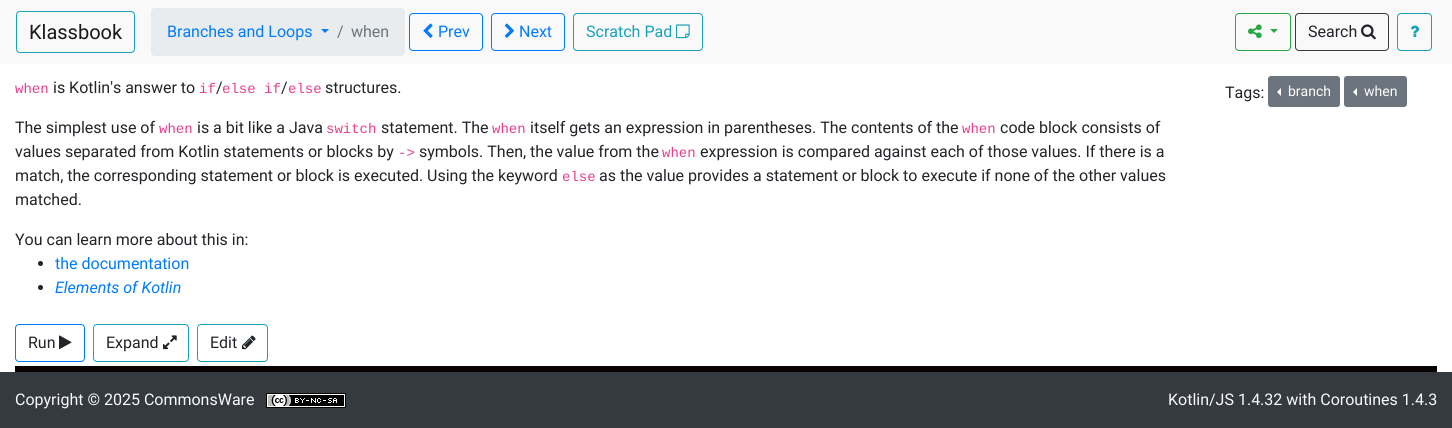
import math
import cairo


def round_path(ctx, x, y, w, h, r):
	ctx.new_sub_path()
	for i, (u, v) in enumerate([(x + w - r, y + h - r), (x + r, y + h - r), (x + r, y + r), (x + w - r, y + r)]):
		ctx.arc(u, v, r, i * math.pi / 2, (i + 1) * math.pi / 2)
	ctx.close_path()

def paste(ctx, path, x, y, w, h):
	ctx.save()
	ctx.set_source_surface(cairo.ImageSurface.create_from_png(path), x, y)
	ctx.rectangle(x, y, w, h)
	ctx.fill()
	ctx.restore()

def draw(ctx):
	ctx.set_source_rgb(1, 1, 1)
	ctx.paint()
	ctx.set_source_rgb(0.973, 0.976, 0.98)
	ctx.rectangle(0, 0, 1452, 64)
	ctx.fill()
	round_path(ctx, 16.5, 11.5, 118, 41, 3.5)
	ctx.set_source_rgb(0.09, 0.635, 0.722)
	ctx.set_line_width(1)
	ctx.stroke()
	ctx.select_font_face('Roboto')
	ctx.set_font_size(20)
	ctx.set_source_rgb(0.098, 0.098, 0.098)
	ctx.move_to(29, 39)
	ctx.show_text('Klassbook')
	ctx.set_source_rgb(0.914, 0.925, 0.937)
	round_path(ctx, 151, 8, 254, 48, 4)
	ctx.fill()
	ctx.set_font_size(16)
	ctx.set_source_rgb(0, 0.482, 1)
	ctx.move_to(167, 37)
	ctx.show_text('Branches and Loops')
	ctx.new_path()
	ctx.move_to(321, 29)
	ctx.line_to(329, 29)
	ctx.line_to(325, 33)
	ctx.close_path()
	ctx.fill()
	ctx.set_source_rgb(0.424, 0.459, 0.49)
	ctx.move_to(337, 37)
	ctx.show_text('/')
	ctx.move_to(351, 37)
	ctx.show_text('when')
	round_path(ctx, 409.5, 13.5, 73, 37, 3.5)
	ctx.set_source_rgb(0, 0.482, 1)
	ctx.stroke()
	paste(ctx, 'media/1.png', 423, 23, 10, 15)
	ctx.move_to(438, 37)
	ctx.show_text('Prev')
	round_path(ctx, 491.5, 13.5, 73, 37, 3.5)
	ctx.stroke()
	paste(ctx, 'media/2.png', 504, 23, 10, 15)
	ctx.move_to(519, 37)
	ctx.show_text('Next')
	round_path(ctx, 573.5, 13.5, 129, 37, 3.5)
	ctx.set_source_rgb(0.09, 0.635, 0.722)
	ctx.stroke()
	ctx.move_to(586, 37)
	ctx.show_text('Scratch Pad')
	paste(ctx, 'media/3.png', 676, 24, 14, 15)
	round_path(ctx, 1235.5, 13.5, 55, 37, 3.5)
	ctx.set_source_rgb(0.157, 0.655, 0.271)
	ctx.stroke()
	paste(ctx, 'media/4.png', 1248, 24, 14, 15)
	ctx.new_path()
	ctx.move_to(1270, 29)
	ctx.line_to(1278, 29)
	ctx.line_to(1274, 33)
	ctx.close_path()
	ctx.fill()
	round_path(ctx, 1295.5, 13.5, 93, 37, 3.5)
	ctx.set_source_rgb(0.204, 0.227, 0.251)
	ctx.stroke()
	ctx.set_source_rgb(0.129, 0.145, 0.161)
	ctx.move_to(1308, 37)
	ctx.show_text('Search')
	paste(ctx, 'media/5.png', 1361, 24, 15, 16)
	round_path(ctx, 1397.5, 13.5, 34, 37, 3.5)
	ctx.set_source_rgb(0.09, 0.635, 0.722)
	ctx.stroke()
	paste(ctx, 'media/6.png', 1410, 25, 10, 12)
	ctx.select_font_face('Liberation Mono')
	ctx.set_font_size(14)
	ctx.set_source_rgb(0.91, 0.243, 0.549)
	ctx.move_to(15, 93)
	ctx.show_text('when')
	ctx.select_font_face('Roboto')
	ctx.set_font_size(16)
	ctx.set_source_rgb(0.129, 0.145, 0.161)
	ctx.move_to(53, 93)
	ctx.show_text('is Kotlin\'s answer to')
	ctx.select_font_face('Liberation Mono')
	ctx.set_font_size(14)
	ctx.set_source_rgb(0.91, 0.243, 0.549)
	ctx.move_to(199, 93)
	ctx.show_text('if')
	ctx.select_font_face('Roboto')
	ctx.set_font_size(16)
	ctx.set_source_rgb(0.129, 0.145, 0.161)
	ctx.move_to(216, 93)
	ctx.show_text('/')
	ctx.select_font_face('Liberation Mono')
	ctx.set_font_size(14)
	ctx.set_source_rgb(0.91, 0.243, 0.549)
	ctx.move_to(222, 93)
	ctx.show_text('else if')
	ctx.select_font_face('Roboto')
	ctx.set_font_size(16)
	ctx.set_source_rgb(0.129, 0.145, 0.161)
	ctx.move_to(281, 93)
	ctx.show_text('/')
	ctx.select_font_face('Liberation Mono')
	ctx.set_font_size(14)
	ctx.set_source_rgb(0.91, 0.243, 0.549)
	ctx.move_to(288, 93)
	ctx.show_text('else')
	ctx.select_font_face('Roboto')
	ctx.set_font_size(16)
	ctx.set_source_rgb(0.129, 0.145, 0.161)
	ctx.move_to(325, 93)
	ctx.show_text('structures.')
	ctx.move_to(15, 133)
	ctx.show_text('The simplest use of')
	ctx.select_font_face('Liberation Mono')
	ctx.set_font_size(14)
	ctx.set_source_rgb(0.91, 0.243, 0.549)
	ctx.move_to(159, 133)
	ctx.show_text('when')
	ctx.select_font_face('Roboto')
	ctx.set_font_size(16)
	ctx.set_source_rgb(0.129, 0.145, 0.161)
	ctx.move_to(197, 133)
	ctx.show_text('is a bit like a Java')
	ctx.select_font_face('Liberation Mono')
	ctx.set_font_size(14)
	ctx.set_source_rgb(0.91, 0.243, 0.549)
	ctx.move_to(326, 133)
	ctx.show_text('switch')
	ctx.select_font_face('Roboto')
	ctx.set_font_size(16)
	ctx.set_source_rgb(0.129, 0.145, 0.161)
	ctx.move_to(381, 133)
	ctx.show_text('statement. The')
	ctx.select_font_face('Liberation Mono')
	ctx.set_font_size(14)
	ctx.set_source_rgb(0.91, 0.243, 0.549)
	ctx.move_to(492, 133)
	ctx.show_text('when')
	ctx.select_font_face('Roboto')
	ctx.set_font_size(16)
	ctx.set_source_rgb(0.129, 0.145, 0.161)
	ctx.move_to(530, 133)
	ctx.show_text('itself gets an expression in parentheses. The contents of the')
	ctx.select_font_face('Liberation Mono')
	ctx.set_font_size(14)
	ctx.set_source_rgb(0.91, 0.243, 0.549)
	ctx.move_to(962, 133)
	ctx.show_text('when')
	ctx.select_font_face('Roboto')
	ctx.set_font_size(16)
	ctx.set_source_rgb(0.129, 0.145, 0.161)
	ctx.move_to(1000, 133)
	ctx.show_text('code block consists of')
	ctx.move_to(15, 157)
	ctx.show_text('values separated from Kotlin statements or blocks by')
	ctx.select_font_face('Liberation Mono')
	ctx.set_font_size(14)
	ctx.set_source_rgb(0.91, 0.243, 0.549)
	ctx.move_to(398, 157)
	ctx.show_text('->')
	ctx.select_font_face('Roboto')
	ctx.set_font_size(16)
	ctx.set_source_rgb(0.129, 0.145, 0.161)
	ctx.move_to(419, 157)
	ctx.show_text('symbols. Then, the value from the')
	ctx.select_font_face('Liberation Mono')
	ctx.set_font_size(14)
	ctx.set_source_rgb(0.91, 0.243, 0.549)
	ctx.move_to(662, 157)
	ctx.show_text('when')
	ctx.select_font_face('Roboto')
	ctx.set_font_size(16)
	ctx.set_source_rgb(0.129, 0.145, 0.161)
	ctx.move_to(700, 157)
	ctx.show_text('expression is compared against each of those values. If there is a')
	ctx.move_to(15, 181)
	ctx.show_text('match, the corresponding statement or block is executed. Using the keyword')
	ctx.select_font_face('Liberation Mono')
	ctx.set_font_size(14)
	ctx.set_source_rgb(0.91, 0.243, 0.549)
	ctx.move_to(562, 181)
	ctx.show_text('else')
	ctx.select_font_face('Roboto')
	ctx.set_font_size(16)
	ctx.set_source_rgb(0.129, 0.145, 0.161)
	for x, y, s in [
		(599, 181, 'as the value provides a statement or block to execute if none of the other values'),
		(15, 205, 'matched.'),
		(15, 245, 'You can learn more about this in:'),
	]:
		ctx.move_to(x, y)
		ctx.show_text(s)
	ctx.new_path()
	ctx.arc(40.5, 263.5, 2.5, 0, 2 * math.pi)
	ctx.fill()
	ctx.set_source_rgb(0, 0.482, 1)
	ctx.move_to(55, 269)
	ctx.show_text('the documentation')
	ctx.set_source_rgb(0.129, 0.145, 0.161)
	ctx.new_path()
	ctx.arc(40.5, 287.5, 2.5, 0, 2 * math.pi)
	ctx.fill()
	ctx.select_font_face('Roboto', cairo.FONT_SLANT_ITALIC)
	ctx.set_source_rgb(0, 0.482, 1)
	ctx.move_to(55, 293)
	ctx.show_text('Elements of Kotlin')
	ctx.select_font_face('Roboto')
	ctx.set_source_rgb(0.129, 0.145, 0.161)
	ctx.move_to(1225, 98)
	ctx.show_text('Tags:')
	ctx.set_source_rgb(0.424, 0.459, 0.49)
	round_path(ctx, 1268.5, 76.5, 71, 30, 2.5)
	ctx.fill_preserve()
	ctx.stroke()
	ctx.set_source_rgb(1, 1, 1)
	ctx.new_path()
	ctx.move_to(1281, 88)
	ctx.line_to(1281, 96)
	ctx.line_to(1277, 92)
	ctx.close_path()
	ctx.fill()
	ctx.set_font_size(14)
	ctx.move_to(1288, 96)
	ctx.show_text('branch')
	ctx.set_source_rgb(0.424, 0.459, 0.49)
	round_path(ctx, 1344.5, 76.5, 62, 30, 2.5)
	ctx.fill_preserve()
	ctx.stroke()
	ctx.set_source_rgb(1, 1, 1)
	ctx.new_path()
	ctx.move_to(1357, 88)
	ctx.line_to(1357, 96)
	ctx.line_to(1353, 92)
	ctx.close_path()
	ctx.fill()
	ctx.move_to(1364, 96)
	ctx.show_text('when')
	round_path(ctx, 15.5, 324.5, 69, 37, 3.5)
	ctx.set_source_rgb(0, 0.482, 1)
	ctx.stroke()
	ctx.set_font_size(16)
	ctx.set_source_rgb(0.129, 0.145, 0.161)
	ctx.move_to(28, 348)
	ctx.show_text('Run')
	paste(ctx, 'media/7.png', 59, 335, 13, 15)
	round_path(ctx, 93.5, 324.5, 95, 37, 3.5)
	ctx.set_source_rgb(0.09, 0.635, 0.722)
	ctx.stroke()
	ctx.set_source_rgb(0.129, 0.145, 0.161)
	ctx.move_to(106, 348)
	ctx.show_text('Expand')
	paste(ctx, 'media/8.png', 163, 335, 14, 15)
	round_path(ctx, 197.5, 324.5, 70, 37, 3.5)
	ctx.set_source_rgb(0.09, 0.635, 0.722)
	ctx.stroke()
	ctx.set_source_rgb(0.129, 0.145, 0.161)
	ctx.move_to(210, 348)
	ctx.show_text('Edit')
	paste(ctx, 'media/9.png', 242, 335, 14, 15)
	ctx.set_source_rgb(0.035, 0.012, 0)
	ctx.rectangle(15, 366, 1422, 6)
	ctx.fill()
	ctx.set_source_rgb(0.204, 0.227, 0.251)
	ctx.rectangle(0, 372, 1452, 56)
	ctx.fill()
	ctx.set_source_rgb(0.973, 0.976, 0.98)
	ctx.move_to(15, 405)
	ctx.show_text('Copyright © 2025 CommonsWare')
	paste(ctx, 'media/10.png', 266, 393, 80, 15)
	ctx.move_to(1168, 405)
	ctx.show_text('Kotlin/JS 1.4.32 with Coroutines 1.4.3')


surface = cairo.ImageSurface(cairo.FORMAT_RGB24, 1452, 428)
ctx = cairo.Context(surface)
options = cairo.FontOptions()
options.set_hint_metrics(cairo.HINT_METRICS_OFF)
options.set_hint_style(cairo.HINT_STYLE_NONE)
ctx.set_font_options(options)
ctx.set_miter_limit(4)
draw(ctx)
surface.write_to_png('image.png')
